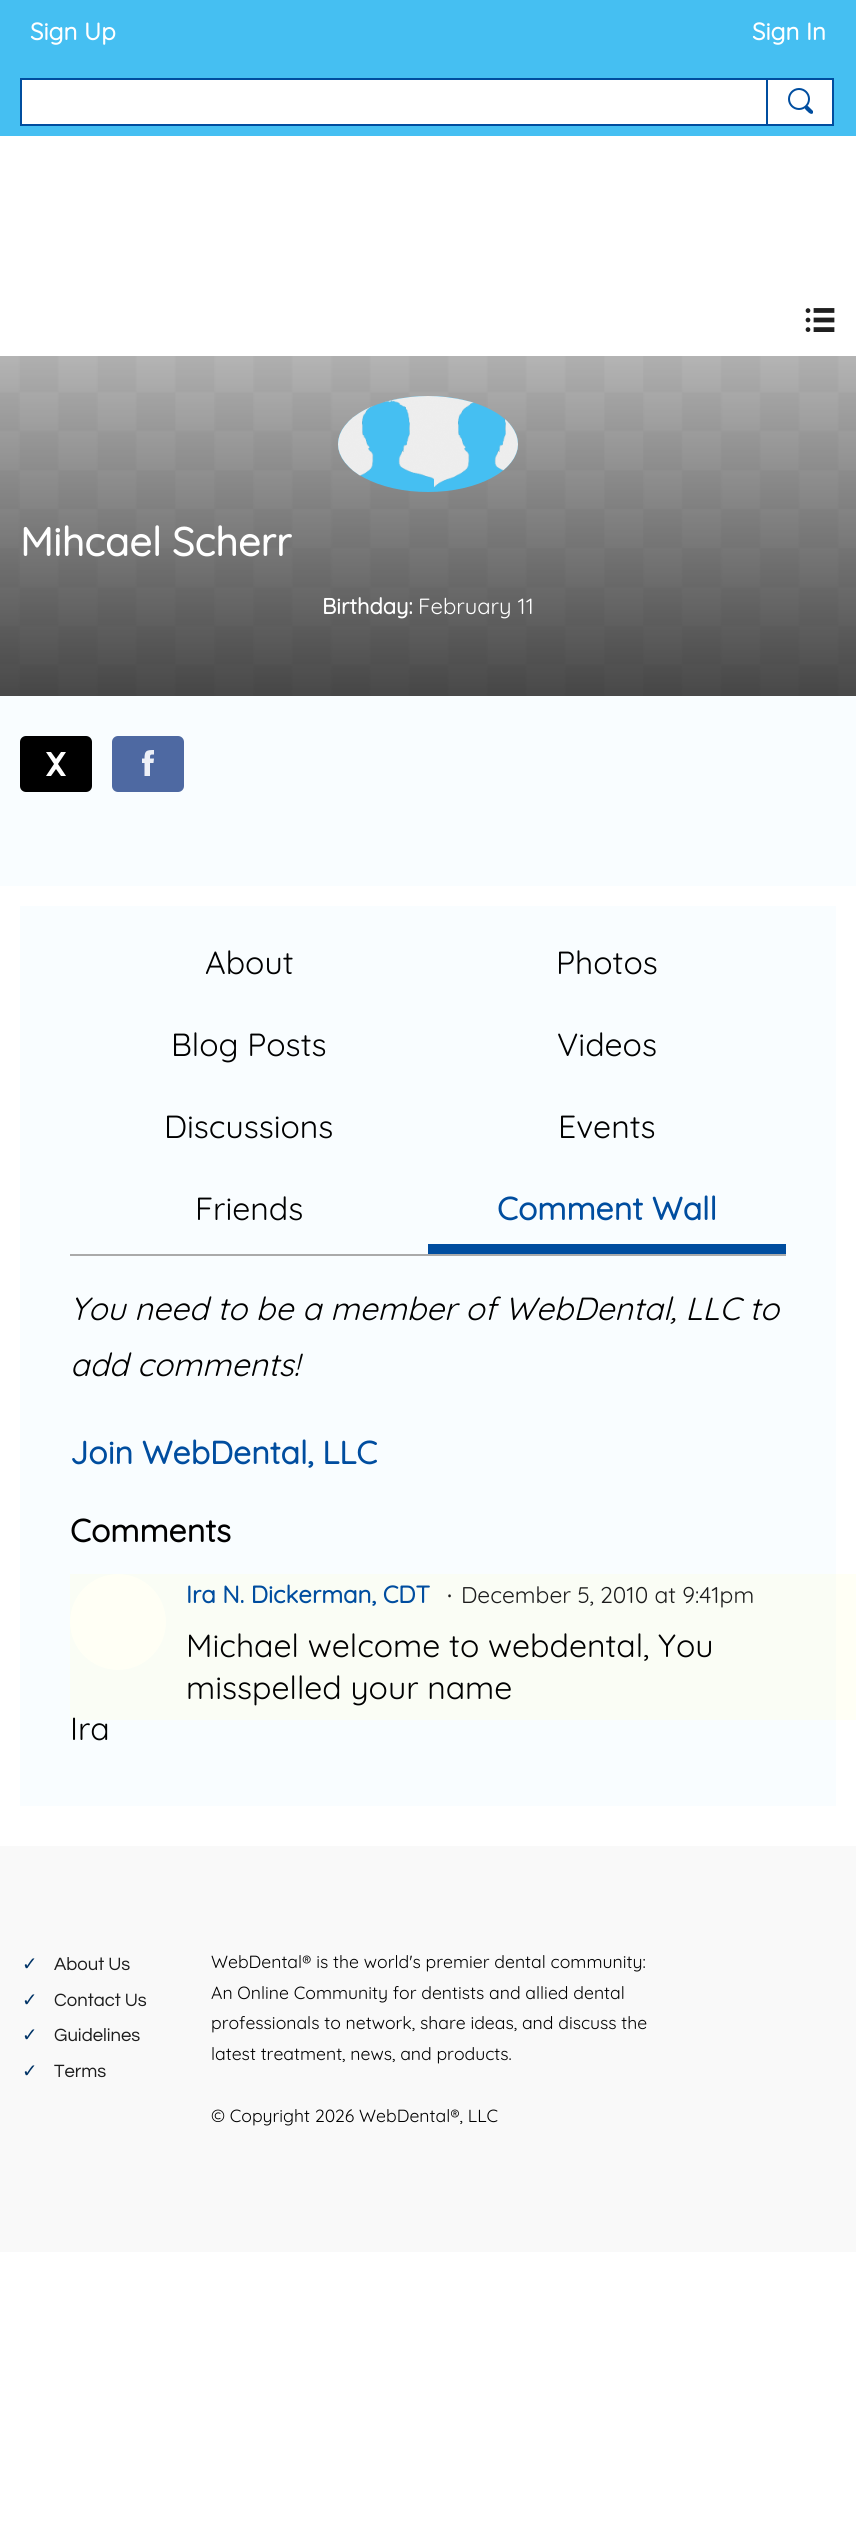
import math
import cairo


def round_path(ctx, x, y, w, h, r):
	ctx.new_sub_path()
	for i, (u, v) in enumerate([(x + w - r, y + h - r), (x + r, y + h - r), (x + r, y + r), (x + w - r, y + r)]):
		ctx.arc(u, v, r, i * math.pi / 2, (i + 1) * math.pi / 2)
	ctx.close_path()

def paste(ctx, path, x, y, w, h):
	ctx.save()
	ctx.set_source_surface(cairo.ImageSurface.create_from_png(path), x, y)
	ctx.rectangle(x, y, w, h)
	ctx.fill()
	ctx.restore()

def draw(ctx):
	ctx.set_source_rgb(1, 1, 1)
	ctx.paint()
	ctx.set_source_rgb(0.271, 0.749, 0.949)
	ctx.rectangle(0, 0, 856, 136)
	ctx.fill()
	ctx.select_font_face('Quicksand', cairo.FONT_SLANT_NORMAL, cairo.FONT_WEIGHT_BOLD)
	ctx.set_font_size(24)
	ctx.set_source_rgb(1, 1, 1)
	ctx.move_to(30, 40)
	ctx.show_text('Sign Up')
	ctx.move_to(752, 40)
	ctx.show_text('Sign In')
	ctx.rectangle(21, 79, 746, 46)
	ctx.fill_preserve()
	ctx.set_source_rgb(0, 0.302, 0.624)
	ctx.stroke()
	ctx.set_source_rgb(1, 1, 1)
	ctx.rectangle(767, 79, 66, 46)
	ctx.fill_preserve()
	ctx.set_source_rgb(0, 0.302, 0.624)
	ctx.stroke()
	ctx.arc(799, 99, 10, 0, 2 * math.pi)
	ctx.stroke()
	ctx.new_path()
	ctx.move_to(808.5, 106.5)
	ctx.line_to(813, 111)
	ctx.curve_to(813, 111.5, 813, 112.5, 813, 113)
	ctx.curve_to(811, 116, 806.5, 110.5, 805.5, 109.5)
	ctx.curve_to(803.5, 107.5, 806.5, 104.5, 808.5, 106.5)
	ctx.close_path()
	ctx.fill()
	paste(ctx, 'media/1.png', 805, 308, 30, 24)
	ctx.set_source_rgb(0.973, 0.992, 1)
	ctx.rectangle(0, 696, 856, 190)
	ctx.fill()
	paste(ctx, 'media/2.png', 0, 356, 856, 340)
	ctx.set_source_rgb(0.271, 0.749, 0.949)
	ctx.new_path()
	ctx.move_to(428, 396)
	ctx.curve_to(477.5, 396, 518, 417.5, 518, 444)
	ctx.curve_to(518, 470.5, 477.5, 492, 428, 492)
	ctx.curve_to(378.5, 492, 338, 470.5, 338, 444)
	ctx.curve_to(338, 417.5, 378.5, 396, 428, 396)
	ctx.close_path()
	ctx.fill()
	paste(ctx, 'media/3.png', 338, 396, 180, 92)
	ctx.set_font_size(40)
	ctx.set_source_rgb(1, 1, 1)
	ctx.move_to(20, 556)
	ctx.show_text('Mihcael Scherr')
	ctx.set_font_size(22)
	ctx.move_to(322, 614)
	ctx.show_text('Birthday:')
	ctx.select_font_face('Quicksand Light')
	ctx.move_to(418, 614)
	ctx.show_text('February 11')
	ctx.set_source_rgb(0, 0, 0)
	round_path(ctx, 20, 736, 72, 56, 6)
	ctx.fill()
	ctx.set_source_rgb(1, 1, 1)
	ctx.set_fill_rule(cairo.FILL_RULE_EVEN_ODD)
	ctx.new_path()
	ctx.move_to(46, 752)
	ctx.line_to(54, 764)
	ctx.line_to(46, 776)
	ctx.line_to(51, 776)
	ctx.line_to(56, 769)
	ctx.line_to(61, 776)
	ctx.line_to(66, 776)
	ctx.line_to(58, 764)
	ctx.line_to(66, 752)
	ctx.line_to(61, 752)
	ctx.line_to(56, 759)
	ctx.line_to(51, 752)
	ctx.close_path()
	ctx.fill()
	ctx.set_source_rgb(0.306, 0.412, 0.635)
	round_path(ctx, 112, 736, 72, 56, 6)
	ctx.fill()
	ctx.set_source_rgb(0.929, 0.941, 0.965)
	ctx.set_fill_rule(cairo.FILL_RULE_WINDING)
	ctx.new_path()
	ctx.move_to(150, 776)
	ctx.line_to(150, 763)
	ctx.line_to(153.5, 763)
	ctx.line_to(154, 758.5)
	ctx.line_to(150, 758.5)
	ctx.curve_to(150, 754.5, 150, 754.5, 154, 754.5)
	ctx.line_to(154, 750)
	ctx.curve_to(146.5, 750, 144.5, 750.5, 144.5, 758.5)
	ctx.line_to(142, 758.5)
	ctx.line_to(142, 763)
	ctx.line_to(144.5, 763)
	ctx.line_to(144.5, 776)
	ctx.close_path()
	ctx.fill()
	ctx.set_source_rgb(0.973, 0.992, 1)
	ctx.rectangle(20, 906, 816, 900)
	ctx.fill()
	ctx.set_source_rgb(0.667, 0.667, 0.667)
	ctx.rectangle(70, 1254, 716, 2)
	ctx.fill()
	ctx.set_font_size(32)
	ctx.set_source_rgb(0, 0, 0)
	for x, y, s in [
		(205, 974, 'About'),
		(556, 974, 'Photos'),
		(171, 1056, 'Blog Posts'),
		(557, 1056, 'Videos'),
		(164, 1138, 'Discussions'),
		(558, 1138, 'Events'),
		(195, 1220, 'Friends'),
	]:
		ctx.move_to(x, y)
		ctx.show_text(s)
	ctx.set_source_rgb(0, 0.302, 0.624)
	ctx.rectangle(428, 1244, 358, 10)
	ctx.fill()
	ctx.select_font_face('Quicksand', cairo.FONT_SLANT_NORMAL, cairo.FONT_WEIGHT_BOLD)
	ctx.move_to(497, 1220)
	ctx.show_text('Comment Wall')
	ctx.select_font_face('Quicksand Light', cairo.FONT_SLANT_ITALIC)
	ctx.set_source_rgb(0, 0, 0)
	ctx.move_to(70, 1320)
	ctx.show_text('You need to be a member of WebDental, LLC to')
	ctx.move_to(70, 1376)
	ctx.show_text('add comments!')
	ctx.select_font_face('Quicksand', cairo.FONT_SLANT_NORMAL, cairo.FONT_WEIGHT_BOLD)
	ctx.set_source_rgb(0, 0.302, 0.624)
	ctx.move_to(70, 1464)
	ctx.show_text('Join WebDental, LLC')
	ctx.set_source_rgb(0, 0, 0)
	ctx.move_to(70, 1542)
	ctx.show_text('Comments')
	ctx.set_source_rgb(1, 1, 1)
	ctx.new_path()
	ctx.arc(118, 1622, 48, 0, 2 * math.pi)
	ctx.fill()
	ctx.set_source_rgba(1, 1, 0.6, 0.1)
	ctx.rectangle(70, 1574, 786, 146)
	ctx.fill()
	ctx.set_font_size(24)
	ctx.set_source_rgb(0, 0.302, 0.624)
	ctx.move_to(186, 1603)
	ctx.show_text('Ira N. Dickerman, CDT')
	ctx.set_font_size(22.75)
	ctx.set_source_rgb(0.11, 0.11, 0.11)
	ctx.move_to(447, 1603)
	ctx.show_text('·')
	ctx.select_font_face('Quicksand Light')
	ctx.move_to(461, 1603)
	ctx.show_text('December 5, 2010 at 9:41pm')
	ctx.set_font_size(32)
	ctx.set_source_rgb(0, 0, 0)
	for x, y, s in [
		(186, 1657, 'Michael welcome to webdental, You'),
		(186, 1699, 'misspelled your name'),
		(70, 1740, 'Ira'),
	]:
		ctx.move_to(x, y)
		ctx.show_text(s)
	ctx.set_source_rgb(0.976, 0.976, 0.976)
	ctx.rectangle(0, 1846, 856, 406)
	ctx.fill()
	ctx.select_font_face('DejaVu Sans')
	ctx.set_font_size(18.5)
	ctx.set_source_rgb(0, 0.2, 0.4)
	ctx.move_to(22, 1970)
	ctx.show_text('✓')
	ctx.select_font_face('Questrial')
	ctx.set_source_rgb(0.11, 0.11, 0.11)
	ctx.move_to(54, 1970)
	ctx.show_text('About Us')
	ctx.select_font_face('DejaVu Sans')
	ctx.set_source_rgb(0, 0.2, 0.4)
	ctx.move_to(22, 2006)
	ctx.show_text('✓')
	ctx.select_font_face('Questrial')
	ctx.set_source_rgb(0.11, 0.11, 0.11)
	ctx.move_to(54, 2006)
	ctx.show_text('Contact Us')
	ctx.select_font_face('DejaVu Sans')
	ctx.set_source_rgb(0, 0.2, 0.4)
	ctx.move_to(22, 2041)
	ctx.show_text('✓')
	ctx.select_font_face('Questrial')
	ctx.set_source_rgb(0.11, 0.11, 0.11)
	ctx.move_to(54, 2041)
	ctx.show_text('Guidelines')
	ctx.select_font_face('DejaVu Sans')
	ctx.set_source_rgb(0, 0.2, 0.4)
	ctx.move_to(22, 2077)
	ctx.show_text('✓')
	ctx.select_font_face('Questrial')
	ctx.set_source_rgb(0.11, 0.11, 0.11)
	ctx.move_to(54, 2077)
	ctx.show_text('Terms')
	ctx.select_font_face('Quicksand Light')
	ctx.set_font_size(17.6)
	ctx.set_source_rgb(0, 0, 0)
	for x, y, s in [
		(211, 1968, 'WebDental® is the world\'s premier dental community:'),
		(211, 1999, 'An Online Community for dentists and allied dental'),
		(211, 2029, 'professionals to network, share ideas, and discuss the'),
		(211, 2060, 'latest treatment, news, and products.'),
		(211, 2122, '© Copyright 2026 WebDental®, LLC'),
	]:
		ctx.move_to(x, y)
		ctx.show_text(s)


surface = cairo.ImageSurface(cairo.FORMAT_RGB24, 856, 2543)
ctx = cairo.Context(surface)
options = cairo.FontOptions()
options.set_hint_metrics(cairo.HINT_METRICS_OFF)
options.set_hint_style(cairo.HINT_STYLE_NONE)
ctx.set_font_options(options)
ctx.set_miter_limit(4)
draw(ctx)
surface.write_to_png('image.png')
